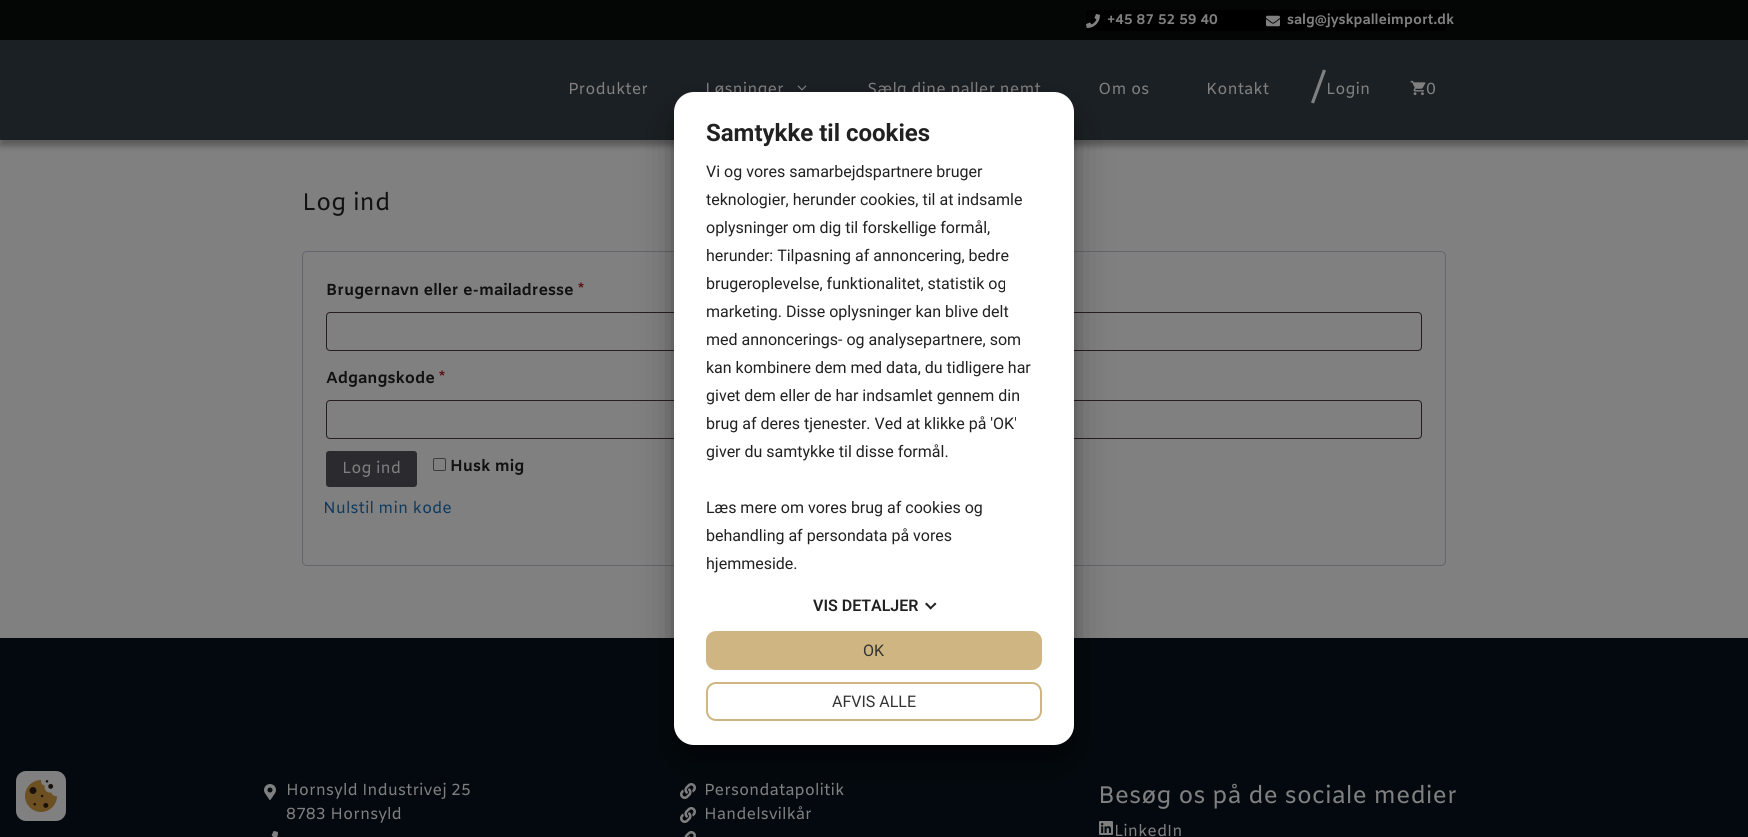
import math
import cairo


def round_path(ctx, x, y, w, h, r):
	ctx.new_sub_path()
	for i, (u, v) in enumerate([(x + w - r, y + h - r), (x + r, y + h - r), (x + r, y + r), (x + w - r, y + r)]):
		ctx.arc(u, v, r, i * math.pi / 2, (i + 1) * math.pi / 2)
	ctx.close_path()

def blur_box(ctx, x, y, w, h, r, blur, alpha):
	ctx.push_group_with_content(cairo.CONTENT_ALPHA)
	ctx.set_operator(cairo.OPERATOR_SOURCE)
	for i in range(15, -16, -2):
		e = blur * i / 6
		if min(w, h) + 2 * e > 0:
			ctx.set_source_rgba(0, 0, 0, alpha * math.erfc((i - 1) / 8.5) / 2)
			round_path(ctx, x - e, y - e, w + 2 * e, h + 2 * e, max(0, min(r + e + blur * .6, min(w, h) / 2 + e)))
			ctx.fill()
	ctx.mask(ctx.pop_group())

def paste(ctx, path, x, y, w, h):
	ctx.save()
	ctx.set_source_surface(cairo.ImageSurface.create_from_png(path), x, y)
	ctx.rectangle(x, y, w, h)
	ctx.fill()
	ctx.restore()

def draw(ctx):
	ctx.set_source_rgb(0.502, 0.502, 0.502)
	ctx.paint()
	ctx.set_source_rgb(0.016, 0.02, 0.02)
	ctx.rectangle(0, 0, 1748, 40)
	ctx.fill()
	ctx.set_source_rgb(0, 0, 0)
	ctx.rectangle(1086, 10, 360, 21)
	ctx.fill()
	paste(ctx, 'media/1.png', 1086, 14, 14, 14)
	ctx.select_font_face('Amiko', cairo.FONT_SLANT_NORMAL, cairo.FONT_WEIGHT_BOLD)
	ctx.set_font_size(14)
	ctx.set_source_rgb(0.502, 0.502, 0.502)
	ctx.move_to(1107, 24)
	ctx.show_text('+45 87 52 59 40')
	paste(ctx, 'media/2.png', 1266, 15, 14, 12)
	ctx.move_to(1287, 24)
	ctx.show_text('salg@jyskpalleimport.dk')
	ctx.set_source_rgb(0, 0, 0)
	blur_box(ctx, 0, 46, 1748, 100, 0, 3, 0.3)
	ctx.set_source_rgb(0.106, 0.125, 0.141)
	ctx.rectangle(0, 40, 1748, 100)
	ctx.fill()
	ctx.select_font_face('Amiko')
	ctx.set_font_size(16)
	ctx.set_source_rgb(0.502, 0.502, 0.502)
	ctx.move_to(568, 94)
	ctx.show_text('Produkter')
	ctx.move_to(705, 94)
	ctx.show_text('Løsninger')
	paste(ctx, 'media/3.png', 797, 85, 10, 6)
	for x, y, s in [
		(867, 94, 'Sælg dine paller nemt'),
		(1098, 94, 'Om os'),
		(1206, 94, 'Kontakt'),
	]:
		ctx.move_to(x, y)
		ctx.show_text(s)
	ctx.new_path()
	ctx.move_to(1311, 102.5)
	ctx.line_to(1323, 69.5)
	ctx.line_to(1326, 70.5)
	ctx.line_to(1314, 103.5)
	ctx.close_path()
	ctx.fill()
	ctx.move_to(1326, 94)
	ctx.show_text('Login')
	paste(ctx, 'media/4.png', 1410, 80, 16, 16)
	ctx.move_to(1426, 94)
	ctx.show_text('0')
	ctx.set_font_size(24)
	ctx.set_source_rgb(0.067, 0.067, 0.067)
	ctx.move_to(302, 210)
	ctx.show_text('Log ind')
	round_path(ctx, 302.5, 251.5, 1143, 314, 4.5)
	ctx.set_source_rgb(0.408, 0.392, 0.424)
	ctx.set_line_width(1)
	ctx.stroke()
	ctx.select_font_face('Amiko', cairo.FONT_SLANT_NORMAL, cairo.FONT_WEIGHT_BOLD)
	ctx.set_font_size(16)
	ctx.set_source_rgb(0.067, 0.067, 0.067)
	ctx.move_to(326, 295)
	ctx.show_text('Brugernavn eller e-mailadresse')
	ctx.set_source_rgb(0.333, 0, 0)
	ctx.move_to(578, 295)
	ctx.show_text('*')
	round_path(ctx, 326.5, 312.5, 1095, 38, 3.5)
	ctx.set_source_rgb(0.153, 0.114, 0.114)
	ctx.stroke()
	ctx.set_source_rgb(0.067, 0.067, 0.067)
	ctx.move_to(326, 383)
	ctx.show_text('Adgangskode')
	ctx.set_source_rgb(0.333, 0, 0)
	ctx.move_to(439, 383)
	ctx.show_text('*')
	round_path(ctx, 326.5, 400.5, 1095, 38, 3.5)
	ctx.set_source_rgb(0.153, 0.114, 0.114)
	ctx.stroke()
	ctx.set_source_rgb(0.169, 0.169, 0.184)
	round_path(ctx, 326, 451, 91, 36, 3)
	ctx.fill()
	ctx.select_font_face('Amiko')
	ctx.set_source_rgb(0.502, 0.502, 0.502)
	ctx.move_to(342, 473)
	ctx.show_text('Log ind')
	round_path(ctx, 433.5, 458.5, 12, 12, 1.5)
	ctx.set_source_rgb(0.231, 0.231, 0.231)
	ctx.stroke()
	ctx.select_font_face('Amiko', cairo.FONT_SLANT_NORMAL, cairo.FONT_WEIGHT_BOLD)
	ctx.set_source_rgb(0.067, 0.067, 0.067)
	ctx.move_to(450, 471)
	ctx.show_text('Husk mig')
	ctx.select_font_face('Amiko')
	ctx.set_source_rgb(0.059, 0.227, 0.373)
	ctx.move_to(323, 513)
	ctx.show_text('Nulstil min kode')
	ctx.set_source_rgb(0.012, 0.039, 0.055)
	ctx.rectangle(0, 638, 1748, 199)
	ctx.fill()
	ctx.set_source_rgb(0, 0, 0)
	blur_box(ctx, 674, 107, 400, 653, 20, 6, 0.22)
	paste(ctx, 'media/8.png', 680, 783, 16, 16)
	paste(ctx, 'media/8.png', 680, 807, 16, 16)
	paste(ctx, 'media/10.png', 1099, 821, 14, 14)
	blur_box(ctx, 674, 111, 400, 653, 20, 19, 0.3)
	ctx.set_source_rgb(1, 1, 1)
	round_path(ctx, 674, 92, 400, 653, 20)
	ctx.fill()
	ctx.select_font_face('Roboto', cairo.FONT_SLANT_NORMAL, cairo.FONT_WEIGHT_BOLD)
	ctx.set_font_size(24)
	ctx.set_source_rgb(0.129, 0.129, 0.129)
	ctx.move_to(706, 141)
	ctx.show_text('Samtykke til cookies')
	ctx.select_font_face('Roboto')
	ctx.set_font_size(16)
	for x, y, s in [
		(706, 177, 'Vi og vores samarbejdspartnere bruger'),
		(706, 205, 'teknologier, herunder cookies, til at indsamle'),
		(706, 233, 'oplysninger om dig til forskellige formål,'),
		(706, 261, 'herunder: Tilpasning af annoncering, bedre'),
		(706, 289, 'brugeroplevelse, funktionalitet, statistik og'),
		(706, 317, 'marketing. Disse oplysninger kan blive delt'),
		(706, 345, 'med annoncerings- og analysepartnere, som'),
		(706, 373, 'kan kombinere dem med data, du tidligere har'),
		(706, 401, 'givet dem eller de har indsamlet gennem din'),
		(706, 429, 'brug af deres tjenester. Ved at klikke på \'OK\''),
		(706, 457, 'giver du samtykke til disse formål.'),
		(706, 513, 'Læs mere om vores brug af cookies og'),
		(706, 541, 'behandling af persondata på vores'),
		(706, 569, 'hjemmeside.'),
	]:
		ctx.move_to(x, y)
		ctx.show_text(s)
	ctx.select_font_face('Roboto SemiBold')
	ctx.move_to(813, 611)
	ctx.show_text('VIS DETALJER')
	ctx.new_path()
	ctx.move_to(935, 602.5)
	ctx.line_to(936.5, 604)
	ctx.line_to(930.5, 609.5)
	ctx.line_to(929.5, 608)
	ctx.close_path()
	ctx.fill()
	ctx.new_path()
	ctx.move_to(926.5, 602.5)
	ctx.line_to(932, 608)
	ctx.line_to(930.5, 609.5)
	ctx.line_to(925, 604)
	ctx.close_path()
	ctx.fill()
	ctx.set_source_rgb(0.808, 0.71, 0.51)
	round_path(ctx, 707, 632, 334, 37, 9)
	ctx.fill_preserve()
	ctx.set_line_width(2)
	ctx.stroke()
	ctx.select_font_face('Roboto')
	ctx.set_source_rgb(0.2, 0.2, 0.2)
	ctx.move_to(863, 656)
	ctx.show_text('OK')
	round_path(ctx, 707, 683, 334, 37, 9)
	ctx.set_source_rgb(0.808, 0.71, 0.51)
	ctx.stroke()
	ctx.set_source_rgb(0.2, 0.2, 0.2)
	ctx.move_to(832, 707)
	ctx.show_text('AFVIS ALLE')
	ctx.set_source_rgb(0.502, 0.502, 0.502)
	round_path(ctx, 16, 771, 50, 50, 10)
	ctx.fill()
	paste(ctx, 'media/5.png', 25, 780, 32, 32)
	paste(ctx, 'media/6.png', 264, 784, 12, 16)
	ctx.select_font_face('Amiko')
	ctx.move_to(286, 795)
	ctx.show_text('Hornsyld Industrivej 25')
	ctx.move_to(286, 819)
	ctx.show_text('8783 Hornsyld')
	paste(ctx, 'media/7.png', 271, 831, 7, 6)
	ctx.move_to(704, 795)
	ctx.show_text('Persondatapolitik')
	ctx.move_to(704, 819)
	ctx.show_text('Handelsvilkår')
	paste(ctx, 'media/9.png', 684, 831, 12, 6)
	ctx.set_font_size(24)
	ctx.move_to(1098, 803)
	ctx.show_text('Besøg os på de sociale medier')
	ctx.set_font_size(16)
	ctx.move_to(1114, 836)
	ctx.show_text('LinkedIn')


surface = cairo.ImageSurface(cairo.FORMAT_RGB24, 1748, 837)
ctx = cairo.Context(surface)
options = cairo.FontOptions()
options.set_hint_metrics(cairo.HINT_METRICS_OFF)
options.set_hint_style(cairo.HINT_STYLE_NONE)
ctx.set_font_options(options)
ctx.set_miter_limit(4)
draw(ctx)
surface.write_to_png('image.png')
